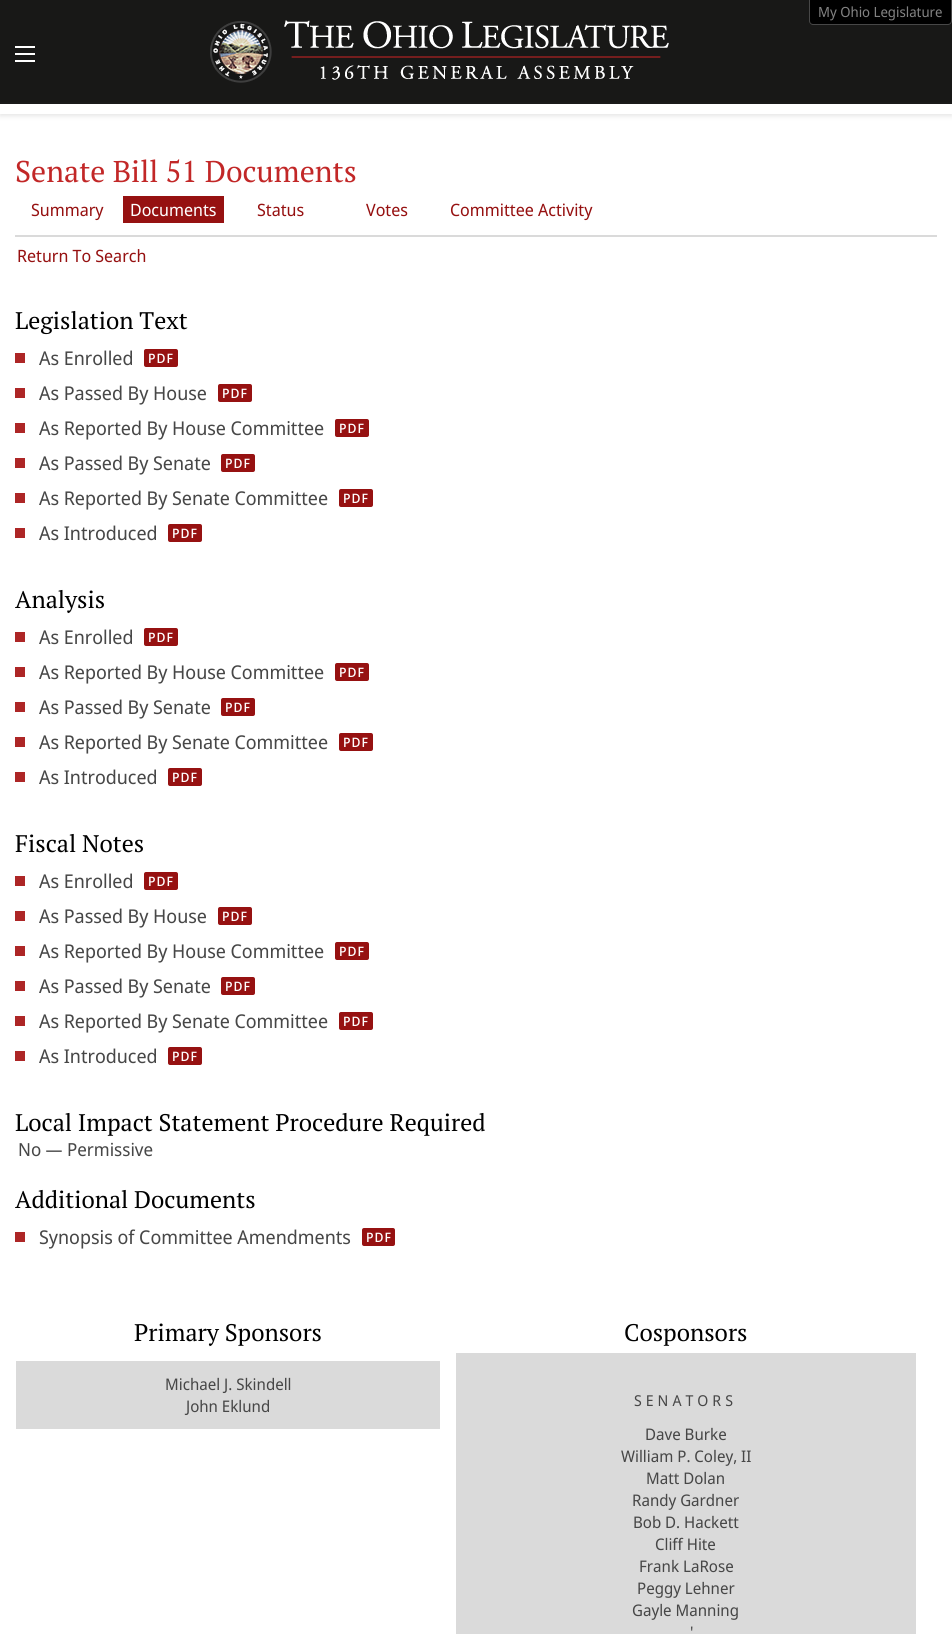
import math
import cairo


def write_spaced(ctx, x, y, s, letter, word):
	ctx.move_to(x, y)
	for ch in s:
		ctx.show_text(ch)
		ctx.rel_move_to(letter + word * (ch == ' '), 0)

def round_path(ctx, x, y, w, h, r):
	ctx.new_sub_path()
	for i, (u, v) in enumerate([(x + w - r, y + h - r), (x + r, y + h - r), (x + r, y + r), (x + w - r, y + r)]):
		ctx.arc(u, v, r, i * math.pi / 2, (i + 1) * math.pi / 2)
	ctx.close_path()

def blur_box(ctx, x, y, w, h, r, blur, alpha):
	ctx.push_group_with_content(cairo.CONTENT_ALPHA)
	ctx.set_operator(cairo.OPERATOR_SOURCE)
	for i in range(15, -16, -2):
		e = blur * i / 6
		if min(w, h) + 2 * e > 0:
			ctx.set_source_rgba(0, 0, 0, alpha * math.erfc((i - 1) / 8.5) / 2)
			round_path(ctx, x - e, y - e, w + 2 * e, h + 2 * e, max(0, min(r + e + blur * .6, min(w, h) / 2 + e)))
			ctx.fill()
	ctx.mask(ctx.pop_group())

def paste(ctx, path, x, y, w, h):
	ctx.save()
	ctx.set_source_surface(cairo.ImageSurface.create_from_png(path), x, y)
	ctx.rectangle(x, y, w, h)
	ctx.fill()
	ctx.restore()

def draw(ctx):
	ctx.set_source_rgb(1, 1, 1)
	ctx.paint()
	ctx.set_source_rgb(0.094, 0.094, 0.09)
	ctx.rectangle(0, 0, 952, 104)
	ctx.fill()
	ctx.set_source_rgb(0, 0, 0)
	ctx.new_path()
	ctx.move_to(810, 0)
	ctx.line_to(951, 0)
	ctx.line_to(951, 21)
	ctx.curve_to(951, 22.5, 949.5, 24, 948, 24)
	ctx.line_to(813, 24)
	ctx.curve_to(811.5, 24, 810, 22.5, 810, 21)
	ctx.close_path()
	ctx.fill()
	ctx.set_source_rgb(0.278, 0.278, 0.278)
	ctx.set_fill_rule(cairo.FILL_RULE_EVEN_ODD)
	ctx.new_path()
	ctx.move_to(809, 0)
	ctx.line_to(952, 0)
	ctx.line_to(952, 21)
	ctx.curve_to(952, 23, 950, 25, 948, 25)
	ctx.line_to(813, 25)
	ctx.curve_to(811, 25, 809, 23, 809, 21)
	ctx.close_path()
	ctx.move_to(810, 0)
	ctx.line_to(951, 0)
	ctx.line_to(951, 21)
	ctx.curve_to(951, 23, 950, 24, 948, 24)
	ctx.line_to(813, 24)
	ctx.curve_to(811, 24, 810, 23, 810, 21)
	ctx.close_path()
	ctx.fill()
	ctx.select_font_face('Noto Sans Display')
	ctx.set_font_size(14)
	ctx.set_source_rgb(0.51, 0.51, 0.51)
	ctx.move_to(818, 17)
	ctx.show_text('My Ohio Legislature')
	paste(ctx, 'media/1.png', 210, 20, 459, 63)
	ctx.save()
	ctx.new_path()
	ctx.move_to(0, 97)
	ctx.line_to(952, 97)
	ctx.line_to(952, 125)
	ctx.line_to(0, 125)
	ctx.close_path()
	ctx.move_to(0, 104)
	ctx.line_to(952, 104)
	ctx.line_to(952, 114)
	ctx.line_to(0, 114)
	ctx.close_path()
	ctx.clip()
	ctx.set_source_rgb(0.49, 0.49, 0.49)
	blur_box(ctx, 0, 106, 952, 10, 0, 2.5, 0.2)
	ctx.restore()
	ctx.set_source_rgb(1, 1, 1)
	ctx.rectangle(15, 46, 20, 2)
	ctx.rectangle(15, 53, 20, 2)
	ctx.rectangle(15, 60, 20, 2)
	ctx.fill()
	ctx.set_source_rgb(0.855, 0.855, 0.855)
	ctx.rectangle(15, 235, 922, 2)
	ctx.fill()
	ctx.select_font_face('PT Serif')
	ctx.set_font_size(30)
	ctx.set_source_rgb(0.761, 0.153, 0.153)
	ctx.move_to(15, 182)
	ctx.show_text('Senate Bill 51 Documents')
	ctx.select_font_face('Noto Sans Display')
	ctx.set_font_size(17)
	ctx.set_source_rgb(0.588, 0.067, 0.067)
	ctx.move_to(31, 216)
	ctx.show_text('Summary')
	ctx.rectangle(123, 196, 101, 27)
	ctx.fill()
	ctx.set_source_rgb(1, 1, 1)
	ctx.move_to(130, 216)
	ctx.show_text('Documents')
	ctx.set_source_rgb(0.588, 0.067, 0.067)
	for x, y, s in [
		(257, 216, 'Status'),
		(366, 216, 'Votes'),
		(450, 216, 'Committee Activity'),
		(17, 262, 'Return To Search'),
	]:
		ctx.move_to(x, y)
		ctx.show_text(s)
	ctx.select_font_face('PT Serif')
	ctx.set_font_size(24)
	ctx.set_source_rgb(0, 0, 0)
	ctx.move_to(15, 329)
	ctx.show_text('Legislation Text')
	ctx.set_source_rgb(0.678, 0.149, 0.149)
	ctx.rectangle(15, 353, 10, 10)
	ctx.fill()
	ctx.select_font_face('Noto Sans Display')
	ctx.set_font_size(19)
	ctx.set_source_rgb(0.278, 0.278, 0.278)
	ctx.move_to(39, 365)
	ctx.show_text('As Enrolled')
	ctx.set_source_rgb(0.588, 0.067, 0.067)
	round_path(ctx, 144, 349, 34, 18, 2)
	ctx.fill()
	ctx.select_font_face('Noto Sans Display Medium')
	ctx.set_font_size(13)
	ctx.set_source_rgb(1, 1, 1)
	write_spaced(ctx, 148, 363, 'PDF', 1, 0)
	ctx.set_source_rgb(0.678, 0.149, 0.149)
	ctx.rectangle(15, 388, 10, 10)
	ctx.fill()
	ctx.select_font_face('Noto Sans Display')
	ctx.set_font_size(19)
	ctx.set_source_rgb(0.278, 0.278, 0.278)
	ctx.move_to(39, 400)
	ctx.show_text('As Passed By House')
	ctx.set_source_rgb(0.588, 0.067, 0.067)
	round_path(ctx, 218, 384, 34, 18, 2)
	ctx.fill()
	ctx.select_font_face('Noto Sans Display Medium')
	ctx.set_font_size(13)
	ctx.set_source_rgb(1, 1, 1)
	write_spaced(ctx, 222, 398, 'PDF', 1, 0)
	ctx.set_source_rgb(0.678, 0.149, 0.149)
	ctx.rectangle(15, 423, 10, 10)
	ctx.fill()
	ctx.select_font_face('Noto Sans Display')
	ctx.set_font_size(19)
	ctx.set_source_rgb(0.278, 0.278, 0.278)
	ctx.move_to(39, 435)
	ctx.show_text('As Reported By House Committee')
	ctx.set_source_rgb(0.588, 0.067, 0.067)
	round_path(ctx, 335, 419, 34, 18, 2)
	ctx.fill()
	ctx.select_font_face('Noto Sans Display Medium')
	ctx.set_font_size(13)
	ctx.set_source_rgb(1, 1, 1)
	write_spaced(ctx, 339, 433, 'PDF', 1, 0)
	ctx.set_source_rgb(0.678, 0.149, 0.149)
	ctx.rectangle(15, 458, 10, 10)
	ctx.fill()
	ctx.select_font_face('Noto Sans Display')
	ctx.set_font_size(19)
	ctx.set_source_rgb(0.278, 0.278, 0.278)
	ctx.move_to(39, 470)
	ctx.show_text('As Passed By Senate')
	ctx.set_source_rgb(0.588, 0.067, 0.067)
	round_path(ctx, 221, 454, 34, 18, 2)
	ctx.fill()
	ctx.select_font_face('Noto Sans Display Medium')
	ctx.set_font_size(13)
	ctx.set_source_rgb(1, 1, 1)
	write_spaced(ctx, 225, 468, 'PDF', 1, 0)
	ctx.set_source_rgb(0.678, 0.149, 0.149)
	ctx.rectangle(15, 493, 10, 10)
	ctx.fill()
	ctx.select_font_face('Noto Sans Display')
	ctx.set_font_size(19)
	ctx.set_source_rgb(0.278, 0.278, 0.278)
	ctx.move_to(39, 505)
	ctx.show_text('As Reported By Senate Committee')
	ctx.set_source_rgb(0.588, 0.067, 0.067)
	round_path(ctx, 339, 489, 34, 18, 2)
	ctx.fill()
	ctx.select_font_face('Noto Sans Display Medium')
	ctx.set_font_size(13)
	ctx.set_source_rgb(1, 1, 1)
	write_spaced(ctx, 343, 503, 'PDF', 1, 0)
	ctx.set_source_rgb(0.678, 0.149, 0.149)
	ctx.rectangle(15, 528, 10, 10)
	ctx.fill()
	ctx.select_font_face('Noto Sans Display')
	ctx.set_font_size(19)
	ctx.set_source_rgb(0.278, 0.278, 0.278)
	ctx.move_to(39, 540)
	ctx.show_text('As Introduced')
	ctx.set_source_rgb(0.588, 0.067, 0.067)
	round_path(ctx, 168, 524, 34, 18, 2)
	ctx.fill()
	ctx.select_font_face('Noto Sans Display Medium')
	ctx.set_font_size(13)
	ctx.set_source_rgb(1, 1, 1)
	write_spaced(ctx, 172, 538, 'PDF', 1, 0)
	ctx.select_font_face('PT Serif')
	ctx.set_font_size(24)
	ctx.set_source_rgb(0, 0, 0)
	ctx.move_to(15, 608)
	ctx.show_text('Analysis')
	ctx.set_source_rgb(0.678, 0.149, 0.149)
	ctx.rectangle(15, 632, 10, 10)
	ctx.fill()
	ctx.select_font_face('Noto Sans Display')
	ctx.set_font_size(19)
	ctx.set_source_rgb(0.278, 0.278, 0.278)
	ctx.move_to(39, 644)
	ctx.show_text('As Enrolled')
	ctx.set_source_rgb(0.588, 0.067, 0.067)
	round_path(ctx, 144, 628, 34, 18, 2)
	ctx.fill()
	ctx.select_font_face('Noto Sans Display Medium')
	ctx.set_font_size(13)
	ctx.set_source_rgb(1, 1, 1)
	write_spaced(ctx, 148, 642, 'PDF', 1, 0)
	ctx.set_source_rgb(0.678, 0.149, 0.149)
	ctx.rectangle(15, 667, 10, 10)
	ctx.fill()
	ctx.select_font_face('Noto Sans Display')
	ctx.set_font_size(19)
	ctx.set_source_rgb(0.278, 0.278, 0.278)
	ctx.move_to(39, 679)
	ctx.show_text('As Reported By House Committee')
	ctx.set_source_rgb(0.588, 0.067, 0.067)
	round_path(ctx, 335, 663, 34, 18, 2)
	ctx.fill()
	ctx.select_font_face('Noto Sans Display Medium')
	ctx.set_font_size(13)
	ctx.set_source_rgb(1, 1, 1)
	write_spaced(ctx, 339, 677, 'PDF', 1, 0)
	ctx.set_source_rgb(0.678, 0.149, 0.149)
	ctx.rectangle(15, 702, 10, 10)
	ctx.fill()
	ctx.select_font_face('Noto Sans Display')
	ctx.set_font_size(19)
	ctx.set_source_rgb(0.278, 0.278, 0.278)
	ctx.move_to(39, 714)
	ctx.show_text('As Passed By Senate')
	ctx.set_source_rgb(0.588, 0.067, 0.067)
	round_path(ctx, 221, 698, 34, 18, 2)
	ctx.fill()
	ctx.select_font_face('Noto Sans Display Medium')
	ctx.set_font_size(13)
	ctx.set_source_rgb(1, 1, 1)
	write_spaced(ctx, 225, 712, 'PDF', 1, 0)
	ctx.set_source_rgb(0.678, 0.149, 0.149)
	ctx.rectangle(15, 737, 10, 10)
	ctx.fill()
	ctx.select_font_face('Noto Sans Display')
	ctx.set_font_size(19)
	ctx.set_source_rgb(0.278, 0.278, 0.278)
	ctx.move_to(39, 749)
	ctx.show_text('As Reported By Senate Committee')
	ctx.set_source_rgb(0.588, 0.067, 0.067)
	round_path(ctx, 339, 733, 34, 18, 2)
	ctx.fill()
	ctx.select_font_face('Noto Sans Display Medium')
	ctx.set_font_size(13)
	ctx.set_source_rgb(1, 1, 1)
	write_spaced(ctx, 343, 747, 'PDF', 1, 0)
	ctx.set_source_rgb(0.678, 0.149, 0.149)
	ctx.rectangle(15, 772, 10, 10)
	ctx.fill()
	ctx.select_font_face('Noto Sans Display')
	ctx.set_font_size(19)
	ctx.set_source_rgb(0.278, 0.278, 0.278)
	ctx.move_to(39, 784)
	ctx.show_text('As Introduced')
	ctx.set_source_rgb(0.588, 0.067, 0.067)
	round_path(ctx, 168, 768, 34, 18, 2)
	ctx.fill()
	ctx.select_font_face('Noto Sans Display Medium')
	ctx.set_font_size(13)
	ctx.set_source_rgb(1, 1, 1)
	write_spaced(ctx, 172, 782, 'PDF', 1, 0)
	ctx.select_font_face('PT Serif')
	ctx.set_font_size(24)
	ctx.set_source_rgb(0, 0, 0)
	ctx.move_to(15, 852)
	ctx.show_text('Fiscal Notes')
	ctx.set_source_rgb(0.678, 0.149, 0.149)
	ctx.rectangle(15, 876, 10, 10)
	ctx.fill()
	ctx.select_font_face('Noto Sans Display')
	ctx.set_font_size(19)
	ctx.set_source_rgb(0.278, 0.278, 0.278)
	ctx.move_to(39, 888)
	ctx.show_text('As Enrolled')
	ctx.set_source_rgb(0.588, 0.067, 0.067)
	round_path(ctx, 144, 872, 34, 18, 2)
	ctx.fill()
	ctx.select_font_face('Noto Sans Display Medium')
	ctx.set_font_size(13)
	ctx.set_source_rgb(1, 1, 1)
	write_spaced(ctx, 148, 886, 'PDF', 1, 0)
	ctx.set_source_rgb(0.678, 0.149, 0.149)
	ctx.rectangle(15, 911, 10, 10)
	ctx.fill()
	ctx.select_font_face('Noto Sans Display')
	ctx.set_font_size(19)
	ctx.set_source_rgb(0.278, 0.278, 0.278)
	ctx.move_to(39, 923)
	ctx.show_text('As Passed By House')
	ctx.set_source_rgb(0.588, 0.067, 0.067)
	round_path(ctx, 218, 907, 34, 18, 2)
	ctx.fill()
	ctx.select_font_face('Noto Sans Display Medium')
	ctx.set_font_size(13)
	ctx.set_source_rgb(1, 1, 1)
	write_spaced(ctx, 222, 921, 'PDF', 1, 0)
	ctx.set_source_rgb(0.678, 0.149, 0.149)
	ctx.rectangle(15, 946, 10, 10)
	ctx.fill()
	ctx.select_font_face('Noto Sans Display')
	ctx.set_font_size(19)
	ctx.set_source_rgb(0.278, 0.278, 0.278)
	ctx.move_to(39, 958)
	ctx.show_text('As Reported By House Committee')
	ctx.set_source_rgb(0.588, 0.067, 0.067)
	round_path(ctx, 335, 942, 34, 18, 2)
	ctx.fill()
	ctx.select_font_face('Noto Sans Display Medium')
	ctx.set_font_size(13)
	ctx.set_source_rgb(1, 1, 1)
	write_spaced(ctx, 339, 956, 'PDF', 1, 0)
	ctx.set_source_rgb(0.678, 0.149, 0.149)
	ctx.rectangle(15, 981, 10, 10)
	ctx.fill()
	ctx.select_font_face('Noto Sans Display')
	ctx.set_font_size(19)
	ctx.set_source_rgb(0.278, 0.278, 0.278)
	ctx.move_to(39, 993)
	ctx.show_text('As Passed By Senate')
	ctx.set_source_rgb(0.588, 0.067, 0.067)
	round_path(ctx, 221, 977, 34, 18, 2)
	ctx.fill()
	ctx.select_font_face('Noto Sans Display Medium')
	ctx.set_font_size(13)
	ctx.set_source_rgb(1, 1, 1)
	write_spaced(ctx, 225, 991, 'PDF', 1, 0)
	ctx.set_source_rgb(0.678, 0.149, 0.149)
	ctx.rectangle(15, 1016, 10, 10)
	ctx.fill()
	ctx.select_font_face('Noto Sans Display')
	ctx.set_font_size(19)
	ctx.set_source_rgb(0.278, 0.278, 0.278)
	ctx.move_to(39, 1028)
	ctx.show_text('As Reported By Senate Committee')
	ctx.set_source_rgb(0.588, 0.067, 0.067)
	round_path(ctx, 339, 1012, 34, 18, 2)
	ctx.fill()
	ctx.select_font_face('Noto Sans Display Medium')
	ctx.set_font_size(13)
	ctx.set_source_rgb(1, 1, 1)
	write_spaced(ctx, 343, 1026, 'PDF', 1, 0)
	ctx.set_source_rgb(0.678, 0.149, 0.149)
	ctx.rectangle(15, 1051, 10, 10)
	ctx.fill()
	ctx.select_font_face('Noto Sans Display')
	ctx.set_font_size(19)
	ctx.set_source_rgb(0.278, 0.278, 0.278)
	ctx.move_to(39, 1063)
	ctx.show_text('As Introduced')
	ctx.set_source_rgb(0.588, 0.067, 0.067)
	round_path(ctx, 168, 1047, 34, 18, 2)
	ctx.fill()
	ctx.select_font_face('Noto Sans Display Medium')
	ctx.set_font_size(13)
	ctx.set_source_rgb(1, 1, 1)
	write_spaced(ctx, 172, 1061, 'PDF', 1, 0)
	ctx.select_font_face('PT Serif')
	ctx.set_font_size(24)
	ctx.set_source_rgb(0, 0, 0)
	ctx.move_to(15, 1131)
	ctx.show_text('Local Impact Statement Procedure Required')
	ctx.select_font_face('Noto Sans Display')
	ctx.set_font_size(18)
	ctx.set_source_rgb(0.278, 0.278, 0.278)
	ctx.move_to(18, 1156)
	ctx.show_text('No — Permissive')
	ctx.select_font_face('PT Serif')
	ctx.set_font_size(24)
	ctx.set_source_rgb(0, 0, 0)
	ctx.move_to(15, 1208)
	ctx.show_text('Additional Documents')
	ctx.set_source_rgb(0.678, 0.149, 0.149)
	ctx.rectangle(15, 1232, 10, 10)
	ctx.fill()
	ctx.select_font_face('Noto Sans Display')
	ctx.set_font_size(19)
	ctx.set_source_rgb(0.278, 0.278, 0.278)
	ctx.move_to(39, 1244)
	ctx.show_text('Synopsis of Committee Amendments')
	ctx.set_source_rgb(0.588, 0.067, 0.067)
	round_path(ctx, 362, 1228, 33, 18, 2)
	ctx.fill()
	ctx.select_font_face('Noto Sans Display Medium')
	ctx.set_font_size(13)
	ctx.set_source_rgb(1, 1, 1)
	write_spaced(ctx, 366, 1242, 'PDF', 1, 0)
	ctx.select_font_face('PT Serif')
	ctx.set_font_size(24)
	ctx.set_source_rgb(0, 0, 0)
	ctx.move_to(134, 1341)
	ctx.show_text('Primary Sponsors')
	ctx.set_source_rgb(0.855, 0.855, 0.855)
	ctx.rectangle(16, 1361, 424, 68)
	ctx.fill()
	ctx.select_font_face('Noto Sans Display')
	ctx.set_font_size(16)
	ctx.set_source_rgb(0.278, 0.278, 0.278)
	ctx.move_to(165, 1390)
	ctx.show_text('Michael J. Skindell')
	ctx.move_to(186, 1412)
	ctx.show_text('John Eklund')
	ctx.select_font_face('PT Serif')
	ctx.set_font_size(24)
	ctx.set_source_rgb(0, 0, 0)
	ctx.move_to(624, 1341)
	ctx.show_text('Cosponsors')
	ctx.set_source_rgb(0.855, 0.855, 0.855)
	ctx.rectangle(456, 1353, 460, 281)
	ctx.fill()
	ctx.select_font_face('Noto Sans Display')
	ctx.set_font_size(15)
	ctx.set_source_rgb(0.278, 0.278, 0.278)
	write_spaced(ctx, 634, 1406, 'SENATORS', 4, 0)
	ctx.set_font_size(16)
	for x, y, s in [
		(645, 1440, 'Dave Burke'),
		(621, 1462, 'William P. Coley, II'),
		(646, 1484, 'Matt Dolan'),
		(632, 1506, 'Randy Gardner'),
		(633, 1528, 'Bob D. Hackett'),
		(655, 1550, 'Cliff Hite'),
		(639, 1572, 'Frank LaRose'),
		(637, 1594, 'Peggy Lehner'),
		(632, 1616, 'Gayle Manning'),
		(690, 1638, '\''),
	]:
		ctx.move_to(x, y)
		ctx.show_text(s)


surface = cairo.ImageSurface(cairo.FORMAT_RGB24, 952, 1634)
ctx = cairo.Context(surface)
options = cairo.FontOptions()
options.set_hint_metrics(cairo.HINT_METRICS_OFF)
options.set_hint_style(cairo.HINT_STYLE_NONE)
ctx.set_font_options(options)
ctx.set_miter_limit(4)
draw(ctx)
surface.write_to_png('image.png')
